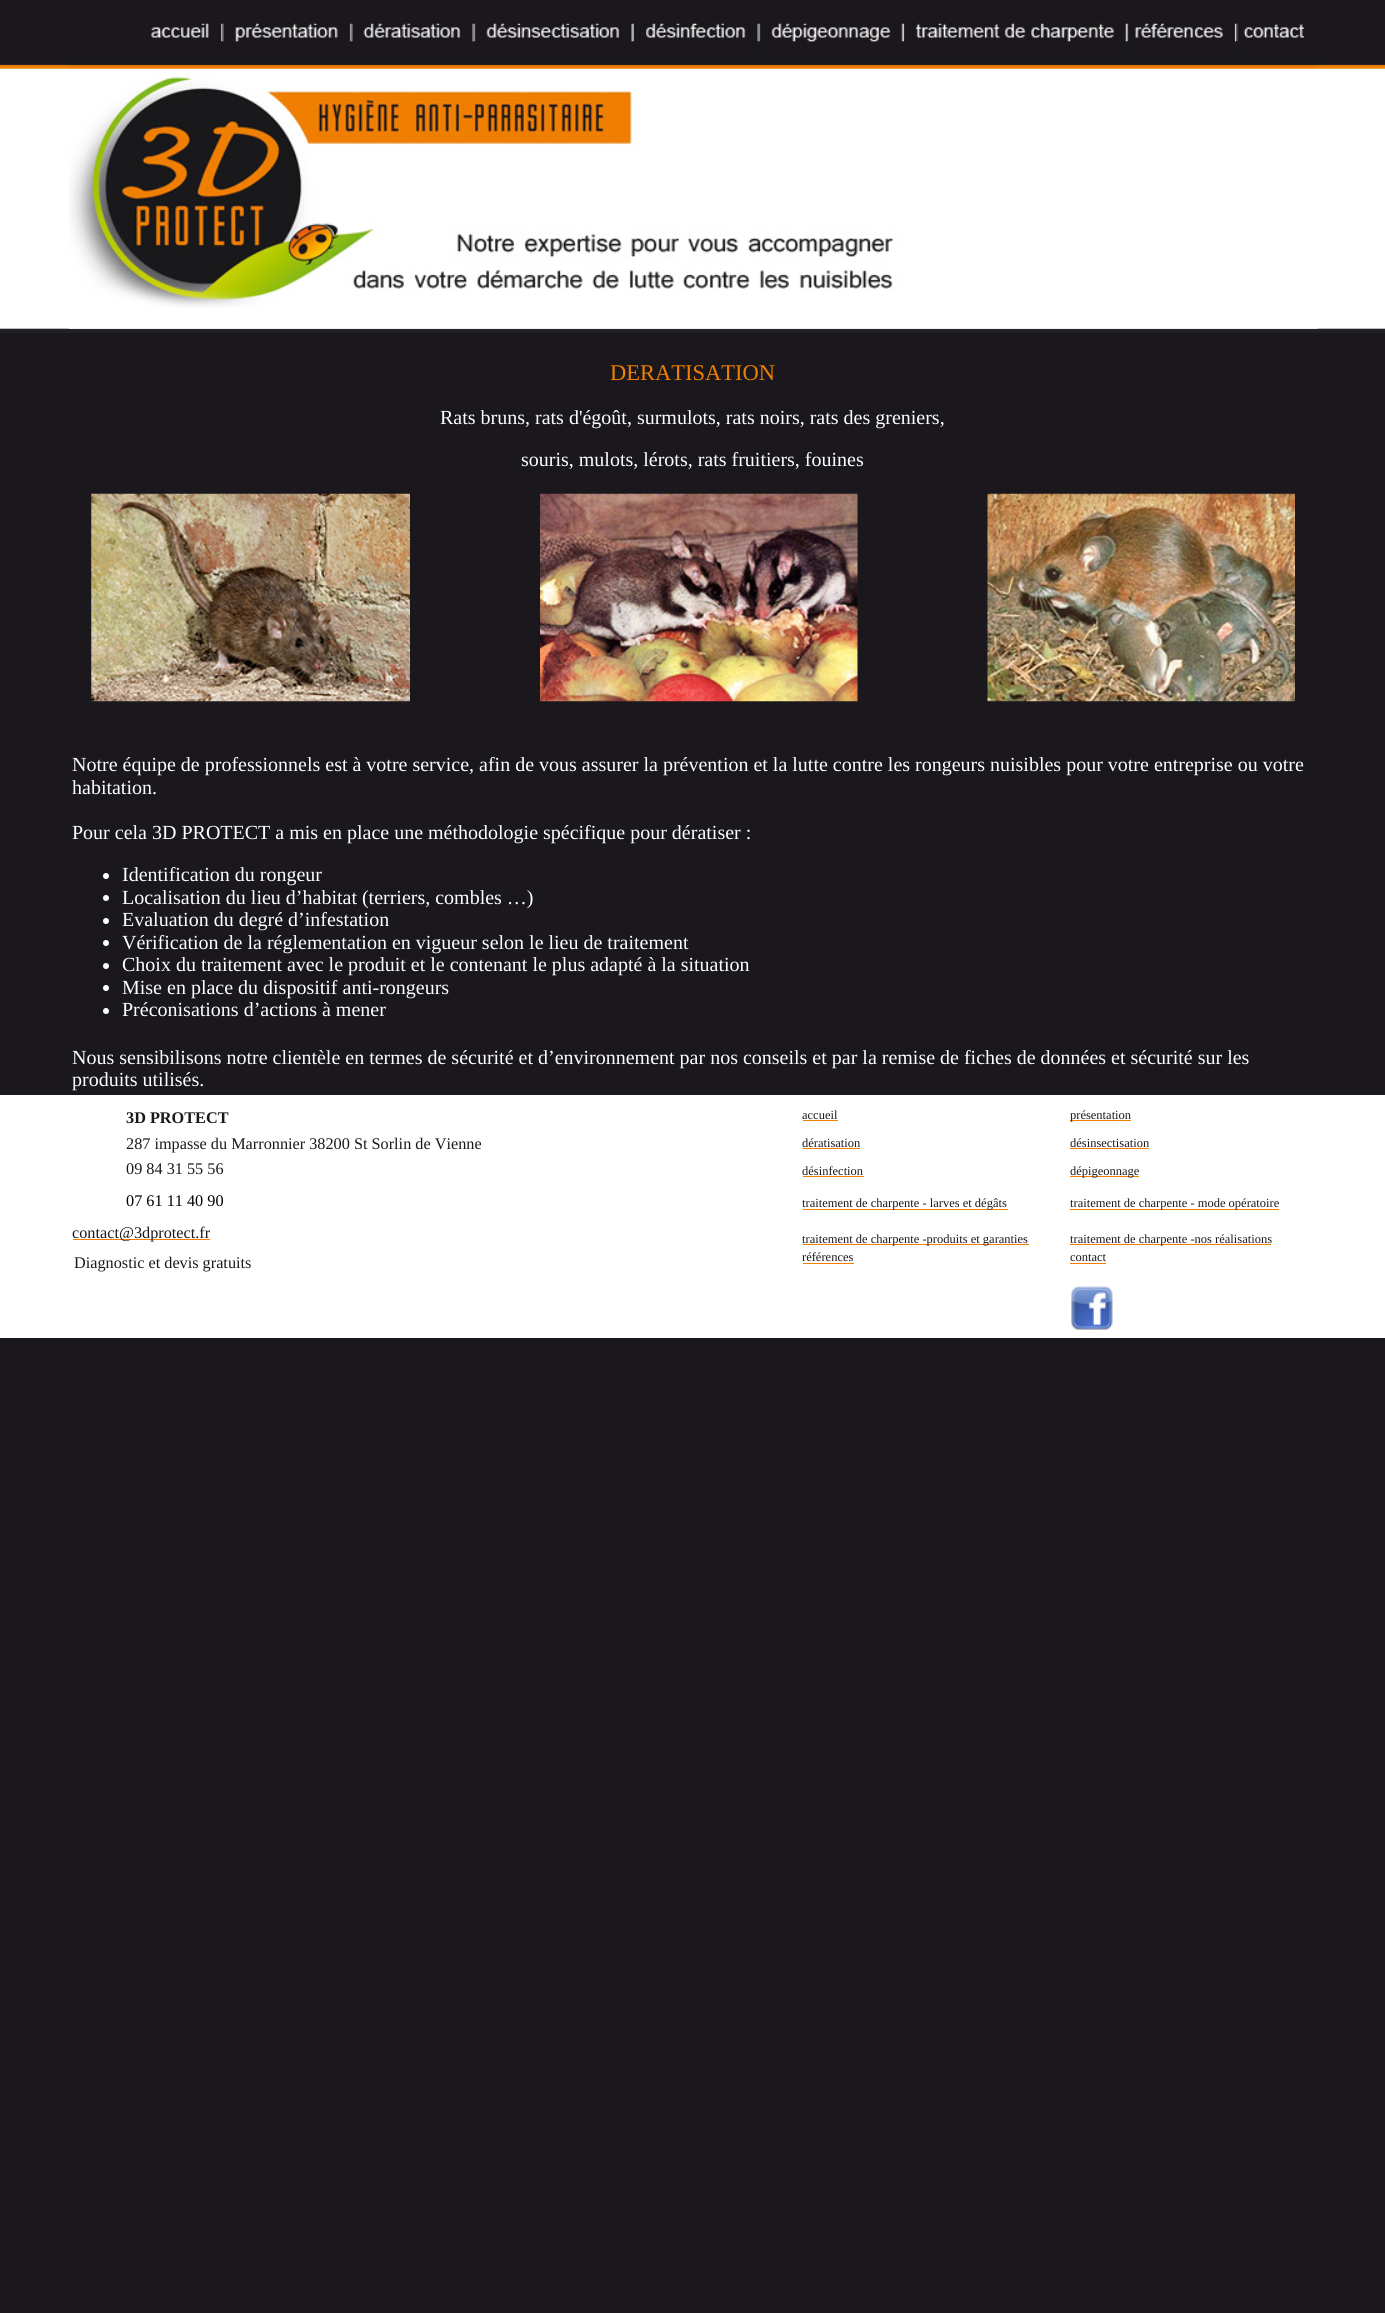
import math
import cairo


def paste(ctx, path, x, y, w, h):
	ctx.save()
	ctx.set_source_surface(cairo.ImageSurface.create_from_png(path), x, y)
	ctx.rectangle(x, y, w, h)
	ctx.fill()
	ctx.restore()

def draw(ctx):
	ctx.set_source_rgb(0.102, 0.094, 0.11)
	ctx.paint()
	paste(ctx, 'media/1.png', 0, 64, 1385, 269)
	paste(ctx, 'media/2.png', 69, 23, 154, 46)
	paste(ctx, 'media/3.png', 222, 23, 130, 46)
	paste(ctx, 'media/4.png', 351, 23, 123, 46)
	paste(ctx, 'media/5.png', 474, 23, 157, 46)
	paste(ctx, 'media/6.png', 631, 23, 128, 46)
	paste(ctx, 'media/7.png', 759, 23, 144, 46)
	paste(ctx, 'media/8.png', 902, 23, 225, 46)
	paste(ctx, 'media/9.png', 1126, 23, 111, 46)
	paste(ctx, 'media/10.png', 1236, 23, 82, 46)
	paste(ctx, 'media/11.png', 68, 70, 1250, 259)
	ctx.select_font_face('Liberation Serif')
	ctx.set_font_size(22.5)
	ctx.set_source_rgb(0.941, 0.498, 0)
	ctx.move_to(610, 380)
	ctx.show_text('DERATISATION')
	ctx.set_font_size(20)
	ctx.set_source_rgb(1, 1, 1)
	ctx.move_to(440, 424)
	ctx.show_text('Rats bruns, rats d\'égoût, surmulots, rats noirs, rats des greniers,')
	ctx.move_to(521, 466)
	ctx.show_text('souris, mulots, lérots, rats fruitiers, fouines')
	paste(ctx, 'media/12.png', 91, 493, 319, 209)
	paste(ctx, 'media/13.png', 540, 493, 318, 209)
	paste(ctx, 'media/14.png', 987, 493, 308, 209)
	for x, y, s in [
		(72, 771, 'Notre équipe de professionnels est à votre service, afin de vous assurer la prévention et la lutte contre les rongeurs nuisibles pour votre entreprise ou votre'),
		(72, 794, 'habitation.'),
		(72, 839, 'Pour cela 3D PROTECT a mis en place une méthodologie spécifique pour dératiser :'),
	]:
		ctx.move_to(x, y)
		ctx.show_text(s)
	ctx.new_path()
	ctx.arc(106, 876, 3, 0, 2 * math.pi)
	ctx.fill()
	ctx.move_to(122, 881)
	ctx.show_text('Identification du rongeur')
	ctx.new_path()
	ctx.arc(106, 898, 3, 0, 2 * math.pi)
	ctx.fill()
	ctx.move_to(122, 904)
	ctx.show_text('Localisation du lieu d’habitat (terriers, combles …)')
	ctx.new_path()
	ctx.arc(106, 921, 3, 0, 2 * math.pi)
	ctx.fill()
	ctx.move_to(122, 926)
	ctx.show_text('Evaluation du degré d’infestation')
	ctx.new_path()
	ctx.arc(106, 943, 3, 0, 2 * math.pi)
	ctx.fill()
	ctx.move_to(122, 949)
	ctx.show_text('Vérification de la réglementation en vigueur selon le lieu de traitement')
	ctx.new_path()
	ctx.arc(106, 966, 3, 0, 2 * math.pi)
	ctx.fill()
	ctx.move_to(122, 971)
	ctx.show_text('Choix du traitement avec le produit et le contenant le plus adapté à la situation')
	ctx.new_path()
	ctx.arc(106, 988, 3, 0, 2 * math.pi)
	ctx.fill()
	ctx.move_to(122, 994)
	ctx.show_text('Mise en place du dispositif anti-rongeurs')
	ctx.new_path()
	ctx.arc(106, 1011, 3, 0, 2 * math.pi)
	ctx.fill()
	for x, y, s in [
		(122, 1016, 'Préconisations d’actions à mener'),
		(72, 1064, 'Nous sensibilisons notre clientèle en termes de sécurité et d’environnement par nos conseils et par la remise de fiches de données et sécurité sur les'),
		(72, 1086, 'produits utilisés.'),
	]:
		ctx.move_to(x, y)
		ctx.show_text(s)
	ctx.rectangle(0, 1095, 1385, 243)
	ctx.fill()
	ctx.select_font_face('Liberation Serif', cairo.FONT_SLANT_NORMAL, cairo.FONT_WEIGHT_BOLD)
	ctx.set_font_size(16.25)
	ctx.set_source_rgb(0.102, 0.094, 0.11)
	ctx.move_to(126, 1123)
	ctx.show_text('3D PROTECT')
	ctx.select_font_face('Liberation Serif')
	ctx.move_to(126, 1149)
	ctx.show_text('287 impasse du Marronnier 38200 St Sorlin de Vienne')
	ctx.move_to(126, 1174)
	ctx.show_text('09 84 31 55 56')
	ctx.set_font_size(12.5)
	ctx.move_to(802, 1119)
	ctx.show_text('accueil')
	ctx.set_source_rgb(0.941, 0.498, 0)
	ctx.rectangle(803, 1120, 35, 1)
	ctx.fill()
	ctx.rectangle(1070, 1120, 61, 1)
	ctx.fill()
	ctx.set_source_rgb(0.102, 0.094, 0.11)
	ctx.move_to(1070, 1119)
	ctx.show_text('présentation')
	ctx.move_to(802, 1147)
	ctx.show_text('dératisation')
	ctx.set_source_rgb(0.941, 0.498, 0)
	ctx.rectangle(803, 1148, 57, 1)
	ctx.fill()
	ctx.set_source_rgb(0.102, 0.094, 0.11)
	ctx.move_to(1070, 1147)
	ctx.show_text('désinsectisation')
	ctx.set_source_rgb(0.941, 0.498, 0)
	ctx.rectangle(1070, 1148, 79, 1)
	ctx.fill()
	ctx.set_source_rgb(0.102, 0.094, 0.11)
	ctx.move_to(802, 1175)
	ctx.show_text('désinfection')
	ctx.set_source_rgb(0.941, 0.498, 0)
	ctx.rectangle(803, 1176, 61, 1)
	ctx.fill()
	ctx.rectangle(1070, 1176, 69, 1)
	ctx.fill()
	ctx.set_source_rgb(0.102, 0.094, 0.11)
	ctx.move_to(1070, 1175)
	ctx.show_text('dépigeonnage')
	ctx.set_font_size(16.25)
	ctx.set_source_rgb(0, 0, 0)
	ctx.move_to(126, 1206)
	ctx.show_text('07 61 11 40 90')
	ctx.set_source_rgb(0.941, 0.498, 0)
	ctx.rectangle(803, 1209, 205, 1)
	ctx.fill()
	ctx.set_font_size(12.5)
	ctx.set_source_rgb(0.102, 0.094, 0.11)
	ctx.move_to(802, 1207)
	ctx.show_text('traitement de charpente - larves et dégâts')
	ctx.set_source_rgb(0.941, 0.498, 0)
	ctx.rectangle(1070, 1209, 209, 1)
	ctx.fill()
	ctx.set_source_rgb(0.102, 0.094, 0.11)
	ctx.move_to(1070, 1207)
	ctx.show_text('traitement de charpente - mode opératoire')
	ctx.set_source_rgb(0.941, 0.498, 0)
	ctx.rectangle(73, 1239, 137, 1)
	ctx.fill()
	ctx.set_font_size(16.25)
	ctx.set_source_rgb(0.102, 0.094, 0.11)
	ctx.move_to(72, 1238)
	ctx.show_text('contact@3dprotect.fr')
	ctx.set_source_rgb(0.941, 0.498, 0)
	ctx.rectangle(803, 1244, 226, 1)
	ctx.fill()
	ctx.set_font_size(12.5)
	ctx.set_source_rgb(0.102, 0.094, 0.11)
	ctx.move_to(802, 1243)
	ctx.show_text('traitement de charpente -produits et garanties')
	ctx.set_source_rgb(0.941, 0.498, 0)
	ctx.rectangle(1070, 1244, 201, 1)
	ctx.fill()
	ctx.set_source_rgb(0.102, 0.094, 0.11)
	ctx.move_to(1070, 1243)
	ctx.show_text('traitement de charpente -nos réalisations')
	ctx.set_font_size(16.25)
	ctx.move_to(74, 1268)
	ctx.show_text('Diagnostic et devis gratuits')
	ctx.set_font_size(12.5)
	ctx.move_to(802, 1261)
	ctx.show_text('références')
	ctx.set_source_rgb(0.941, 0.498, 0)
	ctx.rectangle(803, 1263, 51, 1)
	ctx.fill()
	ctx.set_source_rgb(0.102, 0.094, 0.11)
	ctx.move_to(1070, 1261)
	ctx.show_text('contact')
	ctx.set_source_rgb(0.941, 0.498, 0)
	ctx.rectangle(1070, 1263, 36, 1)
	ctx.fill()
	paste(ctx, 'media/15.png', 1070, 1286, 43, 44)


surface = cairo.ImageSurface(cairo.FORMAT_RGB24, 1385, 2313)
ctx = cairo.Context(surface)
options = cairo.FontOptions()
options.set_hint_metrics(cairo.HINT_METRICS_OFF)
options.set_hint_style(cairo.HINT_STYLE_NONE)
ctx.set_font_options(options)
ctx.set_miter_limit(4)
draw(ctx)
surface.write_to_png('image.png')
